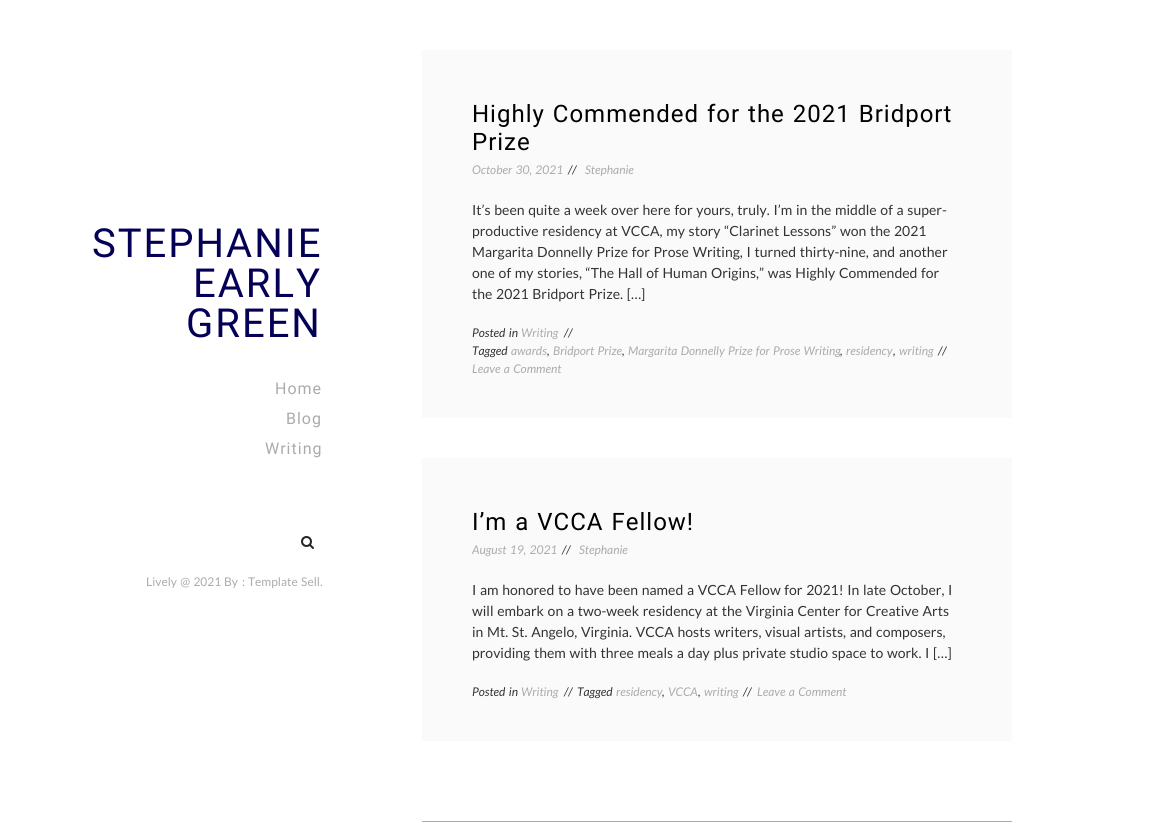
import math
import cairo


def write_spaced(ctx, x, y, s, letter, word):
	ctx.move_to(x, y)
	for ch in s:
		ctx.show_text(ch)
		ctx.rel_move_to(letter + word * (ch == ' '), 0)

def paste(ctx, path, x, y, w, h):
	ctx.save()
	ctx.set_source_surface(cairo.ImageSurface.create_from_png(path), x, y)
	ctx.rectangle(x, y, w, h)
	ctx.fill()
	ctx.restore()

def draw(ctx):
	ctx.set_source_rgb(1, 1, 1)
	ctx.paint()
	ctx.select_font_face('Roboto')
	ctx.set_font_size(40)
	ctx.set_source_rgb(0.016, 0, 0.337)
	for x, y, s in [
		(92, 257, 'STEPHANIE'),
		(193, 297, 'EARLY'),
		(186, 337, 'GREEN'),
	]:
		write_spaced(ctx, x, y, s, 2, 0)
	ctx.set_font_size(16)
	ctx.set_source_rgb(0.671, 0.671, 0.671)
	for x, y, s in [
		(275, 394, 'Home'),
		(286, 424, 'Blog'),
		(265, 454, 'Writing'),
	]:
		write_spaced(ctx, x, y, s, 1, 0)
	paste(ctx, 'media/1.png', 301, 536, 13, 13)
	ctx.select_font_face('Lato')
	ctx.set_font_size(12)
	write_spaced(ctx, 146, 586, 'Lively @ 2021', 0, 1)
	ctx.move_to(224, 586)
	ctx.show_text('By')
	ctx.move_to(242, 586)
	ctx.show_text(':')
	write_spaced(ctx, 248, 586, 'Template Sell', 0, 1)
	ctx.move_to(320, 586)
	ctx.show_text('.')
	ctx.set_source_rgb(0.98, 0.98, 0.98)
	ctx.rectangle(422, 50, 590, 368)
	ctx.fill()
	ctx.select_font_face('Roboto')
	ctx.set_font_size(24)
	ctx.set_source_rgb(0, 0, 0)
	write_spaced(ctx, 472, 122, 'Highly Commended for the 2021 Bridport', 1, 1)
	write_spaced(ctx, 472, 150, 'Prize', 1, 0)
	ctx.select_font_face('Lato', cairo.FONT_SLANT_ITALIC)
	ctx.set_font_size(12)
	ctx.set_source_rgb(0.671, 0.671, 0.671)
	write_spaced(ctx, 472, 174, 'October 30, 2021', 0, 1)
	ctx.set_source_rgb(0.2, 0.2, 0.2)
	ctx.move_to(568, 174)
	ctx.show_text('//')
	ctx.set_source_rgb(0.671, 0.671, 0.671)
	ctx.move_to(585, 174)
	ctx.show_text('Stephanie')
	ctx.select_font_face('Lato')
	ctx.set_font_size(14)
	ctx.set_source_rgb(0.2, 0.2, 0.2)
	for x, y, s in [
		(472, 215, 'It’s been quite a week over here for yours, truly. I’m in the middle of a super-'),
		(472, 236, 'productive residency at VCCA, my story “Clarinet Lessons” won the 2021'),
		(472, 257, 'Margarita Donnelly Prize for Prose Writing, I turned thirty-nine, and another'),
		(472, 278, 'one of my stories, “The Hall of Human Origins,” was Highly Commended for'),
		(472, 299, 'the 2021 Bridport Prize. […]'),
	]:
		write_spaced(ctx, x, y, s, 0, 1)
	ctx.select_font_face('Lato', cairo.FONT_SLANT_ITALIC)
	ctx.set_font_size(12)
	write_spaced(ctx, 472, 337, 'Posted in', 0, 1)
	ctx.set_source_rgb(0.671, 0.671, 0.671)
	ctx.move_to(521, 337)
	ctx.show_text('Writing')
	ctx.set_source_rgb(0.2, 0.2, 0.2)
	ctx.move_to(564, 337)
	ctx.show_text('//')
	ctx.move_to(472, 355)
	ctx.show_text('Tagged')
	ctx.set_source_rgb(0.671, 0.671, 0.671)
	ctx.move_to(511, 355)
	ctx.show_text('awards')
	ctx.set_source_rgb(0.2, 0.2, 0.2)
	ctx.move_to(547, 355)
	ctx.show_text(',')
	ctx.set_source_rgb(0.671, 0.671, 0.671)
	write_spaced(ctx, 553, 355, 'Bridport Prize', 0, 1)
	ctx.set_source_rgb(0.2, 0.2, 0.2)
	ctx.move_to(622, 355)
	ctx.show_text(',')
	ctx.set_source_rgb(0.671, 0.671, 0.671)
	write_spaced(ctx, 628, 355, 'Margarita Donnelly Prize for Prose Writing', 0, 1)
	ctx.set_source_rgb(0.2, 0.2, 0.2)
	ctx.move_to(840, 355)
	ctx.show_text(',')
	ctx.set_source_rgb(0.671, 0.671, 0.671)
	ctx.move_to(846, 355)
	ctx.show_text('residency')
	ctx.set_source_rgb(0.2, 0.2, 0.2)
	ctx.move_to(893, 355)
	ctx.show_text(',')
	ctx.set_source_rgb(0.671, 0.671, 0.671)
	ctx.move_to(899, 355)
	ctx.show_text('writing')
	ctx.set_source_rgb(0.2, 0.2, 0.2)
	ctx.move_to(938, 355)
	ctx.show_text('//')
	ctx.set_source_rgb(0.671, 0.671, 0.671)
	write_spaced(ctx, 472, 373, 'Leave a Comment', 0, 1)
	ctx.set_source_rgb(0.98, 0.98, 0.98)
	ctx.rectangle(422, 458, 590, 283)
	ctx.fill()
	ctx.select_font_face('Roboto')
	ctx.set_font_size(24)
	ctx.set_source_rgb(0, 0, 0)
	write_spaced(ctx, 472, 530, 'I’m a VCCA Fellow!', 1, 1)
	ctx.select_font_face('Lato', cairo.FONT_SLANT_ITALIC)
	ctx.set_font_size(12)
	ctx.set_source_rgb(0.671, 0.671, 0.671)
	write_spaced(ctx, 472, 554, 'August 19, 2021', 0, 1)
	ctx.set_source_rgb(0.2, 0.2, 0.2)
	ctx.move_to(562, 554)
	ctx.show_text('//')
	ctx.set_source_rgb(0.671, 0.671, 0.671)
	ctx.move_to(579, 554)
	ctx.show_text('Stephanie')
	ctx.select_font_face('Lato')
	ctx.set_font_size(14)
	ctx.set_source_rgb(0.2, 0.2, 0.2)
	for x, y, s in [
		(472, 595, 'I am honored to have been named a VCCA Fellow for 2021! In late October, I'),
		(472, 616, 'will embark on a two-week residency at the Virginia Center for Creative Arts'),
		(472, 637, 'in Mt. St. Angelo, Virginia. VCCA hosts writers, visual artists, and composers,'),
		(472, 658, 'providing them with three meals a day plus private studio space to work. I […]'),
	]:
		write_spaced(ctx, x, y, s, 0, 1)
	ctx.select_font_face('Lato', cairo.FONT_SLANT_ITALIC)
	ctx.set_font_size(12)
	write_spaced(ctx, 472, 696, 'Posted in', 0, 1)
	ctx.set_source_rgb(0.671, 0.671, 0.671)
	ctx.move_to(521, 696)
	ctx.show_text('Writing')
	ctx.set_source_rgb(0.2, 0.2, 0.2)
	ctx.move_to(564, 696)
	ctx.show_text('//')
	ctx.move_to(577, 696)
	ctx.show_text('Tagged')
	ctx.set_source_rgb(0.671, 0.671, 0.671)
	ctx.move_to(616, 696)
	ctx.show_text('residency')
	ctx.set_source_rgb(0.2, 0.2, 0.2)
	ctx.move_to(662, 696)
	ctx.show_text(',')
	ctx.set_source_rgb(0.671, 0.671, 0.671)
	ctx.move_to(668, 696)
	ctx.show_text('VCCA')
	ctx.set_source_rgb(0.2, 0.2, 0.2)
	ctx.move_to(698, 696)
	ctx.show_text(',')
	ctx.set_source_rgb(0.671, 0.671, 0.671)
	ctx.move_to(704, 696)
	ctx.show_text('writing')
	ctx.set_source_rgb(0.2, 0.2, 0.2)
	ctx.move_to(743, 696)
	ctx.show_text('//')
	ctx.set_source_rgb(0.671, 0.671, 0.671)
	write_spaced(ctx, 757, 696, 'Leave a Comment', 0, 1)
	ctx.rectangle(422, 821, 590, 1)
	ctx.fill()


surface = cairo.ImageSurface(cairo.FORMAT_RGB24, 1154, 825)
ctx = cairo.Context(surface)
options = cairo.FontOptions()
options.set_hint_metrics(cairo.HINT_METRICS_OFF)
options.set_hint_style(cairo.HINT_STYLE_NONE)
ctx.set_font_options(options)
ctx.set_miter_limit(4)
draw(ctx)
surface.write_to_png('image.png')
